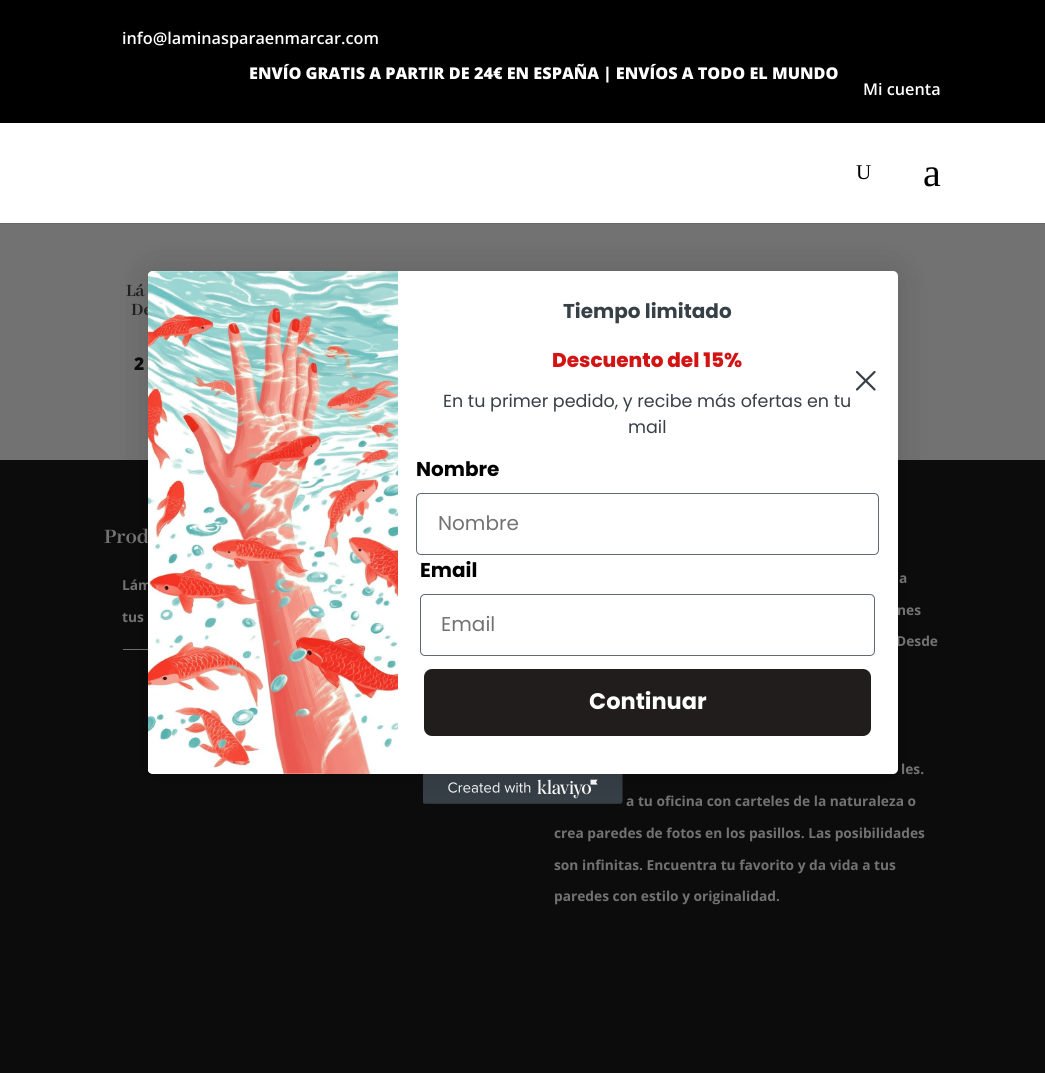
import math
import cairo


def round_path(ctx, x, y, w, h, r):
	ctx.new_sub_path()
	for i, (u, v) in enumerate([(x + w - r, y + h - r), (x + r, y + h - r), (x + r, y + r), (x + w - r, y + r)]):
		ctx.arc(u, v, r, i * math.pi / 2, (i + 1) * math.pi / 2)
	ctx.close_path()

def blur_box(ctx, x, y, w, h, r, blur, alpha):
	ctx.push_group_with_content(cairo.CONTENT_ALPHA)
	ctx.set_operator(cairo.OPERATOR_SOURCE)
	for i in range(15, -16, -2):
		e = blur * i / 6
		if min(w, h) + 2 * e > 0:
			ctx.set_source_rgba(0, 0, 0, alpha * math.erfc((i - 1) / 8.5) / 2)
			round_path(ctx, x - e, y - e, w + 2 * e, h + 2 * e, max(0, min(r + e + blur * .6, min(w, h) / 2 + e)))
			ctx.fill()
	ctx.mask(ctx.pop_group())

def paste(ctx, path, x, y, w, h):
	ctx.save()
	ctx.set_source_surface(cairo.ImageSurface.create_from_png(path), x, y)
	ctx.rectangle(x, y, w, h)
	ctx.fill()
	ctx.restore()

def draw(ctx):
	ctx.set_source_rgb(0.447, 0.447, 0.447)
	ctx.paint()
	ctx.set_source_rgb(0, 0, 0)
	ctx.rectangle(0, 0, 1045, 123)
	ctx.fill()
	ctx.select_font_face('Open Sans SemiBold')
	ctx.set_font_size(16.25)
	ctx.set_source_rgb(1, 1, 1)
	ctx.move_to(122, 44)
	ctx.show_text('info@laminasparaenmarcar.com')
	ctx.select_font_face('Open Sans ExtraBold')
	ctx.move_to(249, 79)
	ctx.show_text('ENVÍO GRATIS A PARTIR DE 24€ EN ESPAÑA | ENVÍOS A TODO EL MUNDO')
	ctx.select_font_face('Open Sans SemiBold')
	ctx.move_to(863, 95)
	ctx.show_text('Mi cuenta')
	ctx.set_source_rgb(0.047, 0.047, 0.047)
	ctx.rectangle(0, 460, 1045, 613)
	ctx.fill()
	ctx.set_source_rgb(0.447, 0.447, 0.447)
	ctx.rectangle(123, 649, 25, 1)
	ctx.fill()
	paste(ctx, 'media/2.png', 423, 774, 200, 30)
	ctx.set_source_rgb(0, 0, 0)
	blur_box(ctx, 148, 271, 750, 503, 5, 19, 0.15)
	ctx.set_source_rgb(0.404, 0.404, 0.404)
	ctx.rectangle(0, 223, 1045, 1)
	ctx.fill()
	ctx.set_source_rgb(1, 1, 1)
	ctx.rectangle(0, 123, 1045, 100)
	ctx.fill()
	ctx.select_font_face('Liberation Serif')
	ctx.set_font_size(21)
	ctx.set_source_rgb(0, 0, 0)
	ctx.move_to(856, 179)
	ctx.show_text('U')
	ctx.set_font_size(40)
	ctx.move_to(923, 186)
	ctx.show_text('a')
	ctx.select_font_face('Abhaya Libre', cairo.FONT_SLANT_NORMAL, cairo.FONT_WEIGHT_BOLD)
	ctx.set_font_size(19)
	ctx.set_source_rgb(0.125, 0.125, 0.125)
	ctx.move_to(126, 296)
	ctx.show_text('Lá')
	ctx.move_to(131, 315)
	ctx.show_text('De')
	ctx.select_font_face('Open Sans ExtraBold')
	ctx.set_font_size(17.5)
	ctx.set_source_rgb(0.047, 0.047, 0.047)
	ctx.move_to(134, 370)
	ctx.show_text('2')
	ctx.select_font_face('Abhaya Libre', cairo.FONT_SLANT_NORMAL, cairo.FONT_WEIGHT_BOLD)
	ctx.set_font_size(22.5)
	ctx.set_source_rgb(0.447, 0.447, 0.447)
	ctx.move_to(104, 543)
	ctx.show_text('Prod')
	ctx.select_font_face('Open Sans', cairo.FONT_SLANT_NORMAL, cairo.FONT_WEIGHT_BOLD)
	ctx.set_font_size(13.75)
	for x, y, s in [
		(122, 590, 'Lám'),
		(122, 622, 'tus'),
		(899, 583, 'a'),
		(897, 615, 'nes'),
		(896, 646, 'Desde'),
		(901, 774, 'les.'),
		(626, 806, 'a tu oficina con carteles de la naturaleza o'),
		(554, 838, 'crea paredes de fotos en los pasillos. Las posibilidades'),
		(554, 870, 'son infinitas. Encuentra tu favorito y da vida a tus'),
		(554, 901, 'paredes con estilo y originalidad.'),
	]:
		ctx.move_to(x, y)
		ctx.show_text(s)
	ctx.set_source_rgb(1, 1, 1)
	round_path(ctx, 148, 271, 750, 503, 5)
	ctx.fill()
	paste(ctx, 'media/1.png', 148, 271, 250, 503)
	ctx.select_font_face('Poppins', cairo.FONT_SLANT_NORMAL, cairo.FONT_WEIGHT_BOLD)
	ctx.set_font_size(20)
	ctx.set_source_rgb(0.216, 0.247, 0.278)
	ctx.move_to(563, 318)
	ctx.show_text('Tiempo limitado')
	ctx.select_font_face('Poppins ExtraBold')
	ctx.set_source_rgb(0.824, 0.082, 0.082)
	ctx.move_to(552, 367)
	ctx.show_text('Descuento del 15%')
	ctx.select_font_face('Poppins')
	ctx.set_font_size(17.5)
	ctx.set_source_rgb(0.216, 0.247, 0.278)
	ctx.move_to(443, 407)
	ctx.show_text('En tu primer pedido, y recibe más ofertas en tu')
	ctx.move_to(628, 433)
	ctx.show_text('mail')
	ctx.select_font_face('Poppins', cairo.FONT_SLANT_NORMAL, cairo.FONT_WEIGHT_BOLD)
	ctx.set_font_size(20)
	ctx.set_source_rgb(0, 0, 0)
	ctx.move_to(416, 476)
	ctx.show_text('Nombre')
	round_path(ctx, 416.5, 493.5, 462, 61, 4.5)
	ctx.set_source_rgb(0.376, 0.416, 0.447)
	ctx.set_line_width(1)
	ctx.stroke()
	ctx.select_font_face('Poppins')
	ctx.set_source_rgb(0.447, 0.447, 0.447)
	ctx.move_to(438, 530)
	ctx.show_text('Nombre')
	ctx.select_font_face('Poppins', cairo.FONT_SLANT_NORMAL, cairo.FONT_WEIGHT_BOLD)
	ctx.set_source_rgb(0, 0, 0)
	ctx.move_to(420, 577)
	ctx.show_text('Email')
	round_path(ctx, 420.5, 594.5, 454, 61, 4.5)
	ctx.set_source_rgb(0.376, 0.416, 0.447)
	ctx.stroke()
	ctx.select_font_face('Poppins')
	ctx.set_source_rgb(0.447, 0.447, 0.447)
	ctx.move_to(441, 631)
	ctx.show_text('Email')
	ctx.set_source_rgb(0.129, 0.114, 0.11)
	round_path(ctx, 424, 669, 447, 67, 8)
	ctx.fill()
	ctx.select_font_face('Poppins', cairo.FONT_SLANT_NORMAL, cairo.FONT_WEIGHT_BOLD)
	ctx.set_font_size(22.5)
	ctx.set_source_rgb(1, 1, 1)
	ctx.move_to(589, 709)
	ctx.show_text('Continuar')
	ctx.new_path()
	ctx.move_to(857, 372)
	ctx.line_to(874.5, 389.5)
	ctx.move_to(857, 389.5)
	ctx.line_to(874.5, 372)
	ctx.close_path()
	ctx.set_source_rgb(0.216, 0.247, 0.278)
	ctx.set_line_width(2.2)
	ctx.set_line_cap(cairo.LINE_CAP_ROUND)
	ctx.set_line_join(cairo.LINE_JOIN_ROUND)
	ctx.stroke()


surface = cairo.ImageSurface(cairo.FORMAT_RGB24, 1045, 1073)
ctx = cairo.Context(surface)
options = cairo.FontOptions()
options.set_hint_metrics(cairo.HINT_METRICS_OFF)
options.set_hint_style(cairo.HINT_STYLE_NONE)
ctx.set_font_options(options)
ctx.set_miter_limit(4)
draw(ctx)
surface.write_to_png('image.png')
